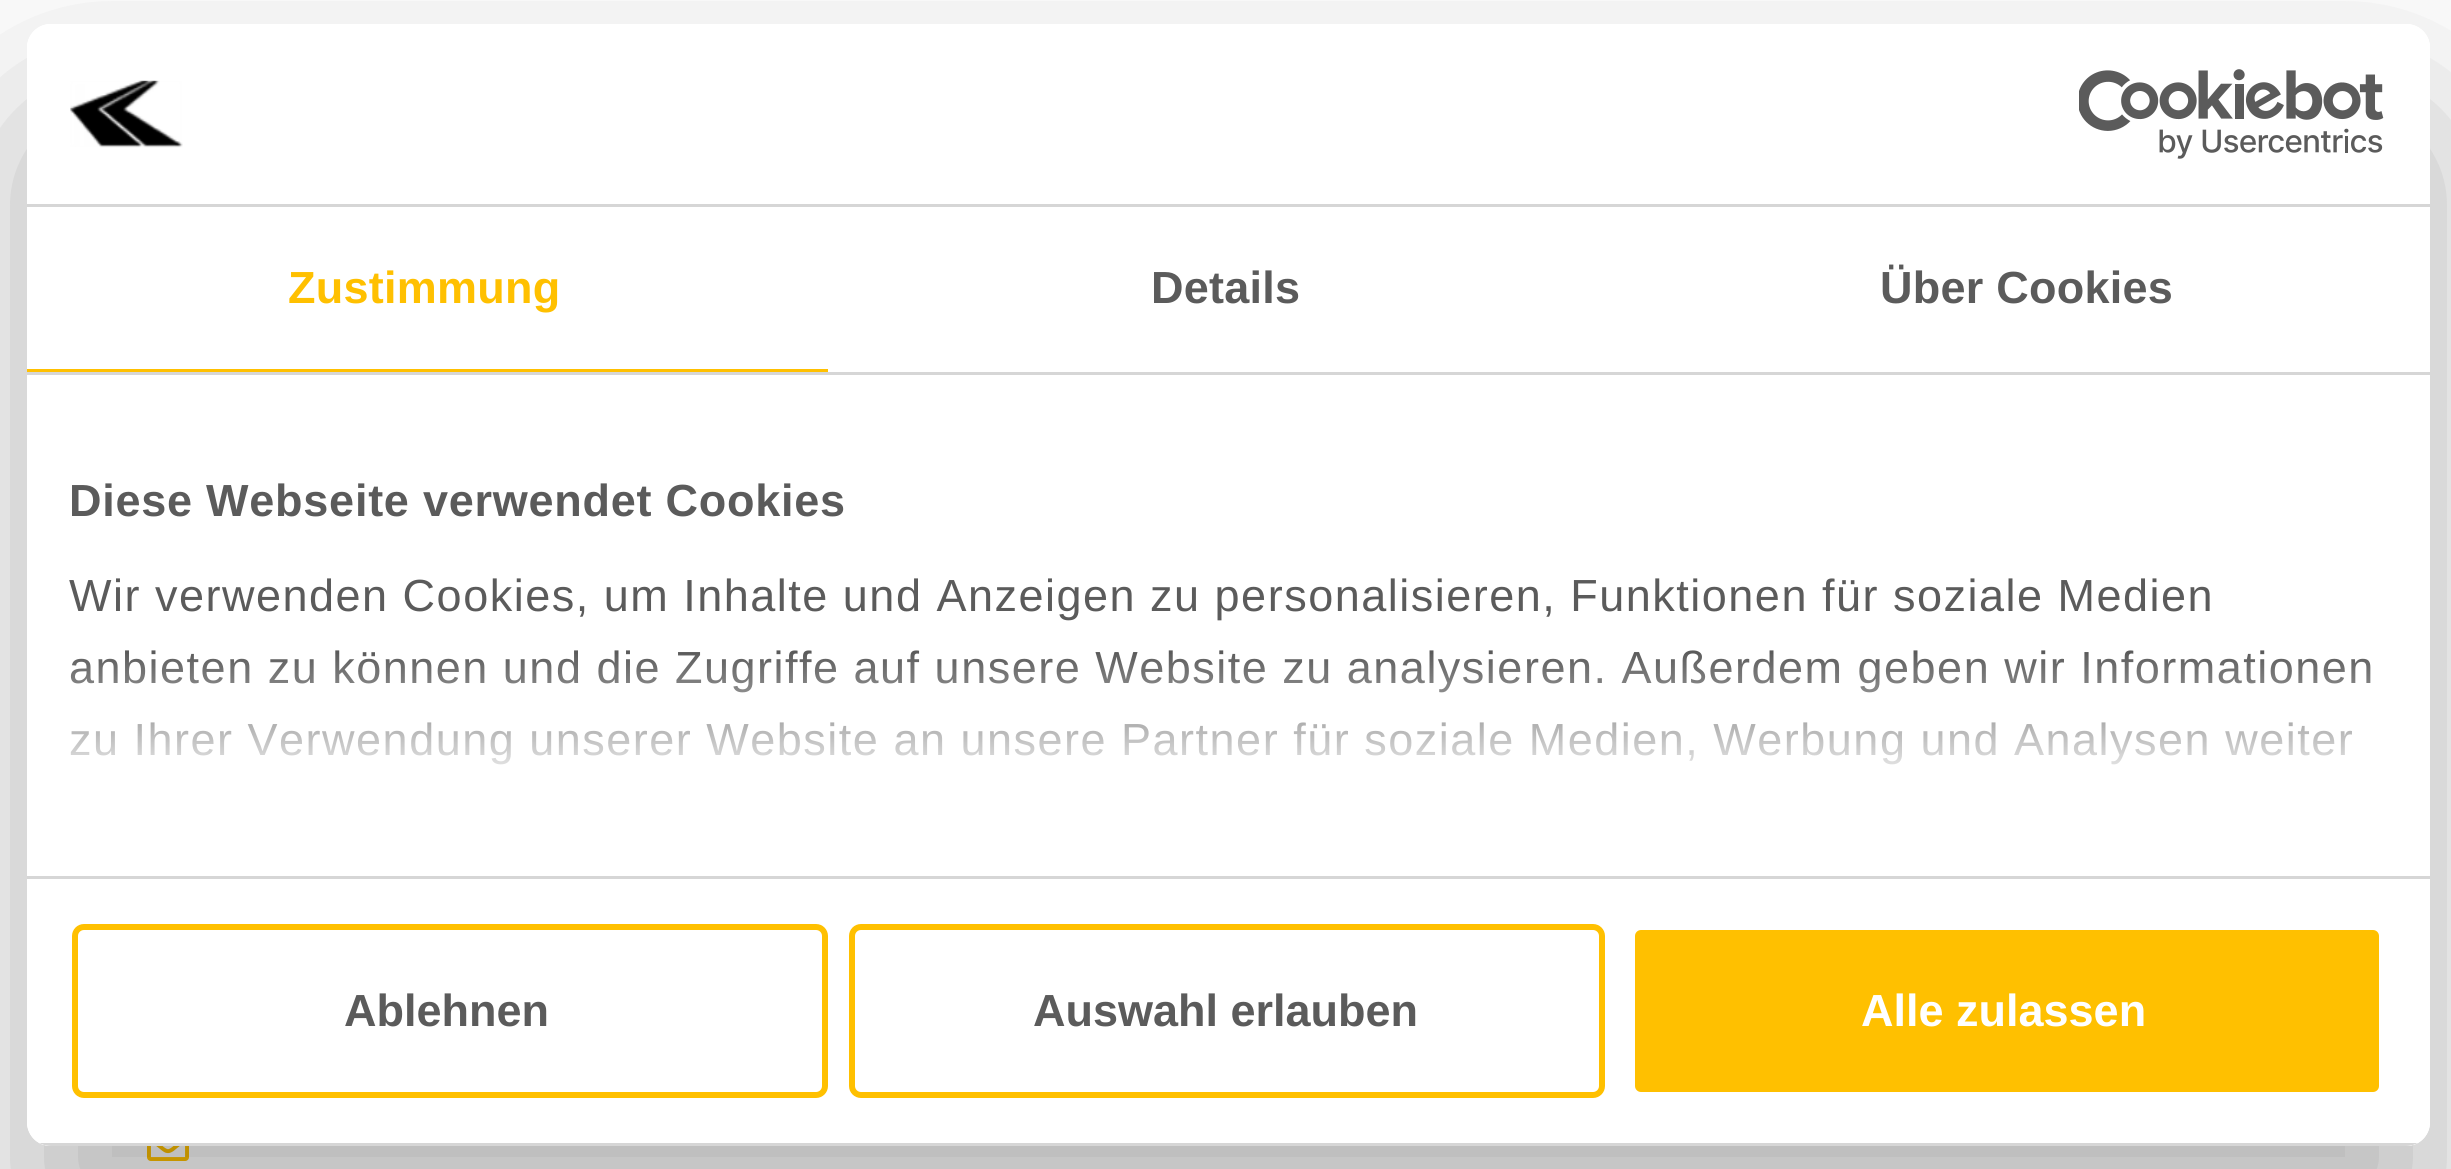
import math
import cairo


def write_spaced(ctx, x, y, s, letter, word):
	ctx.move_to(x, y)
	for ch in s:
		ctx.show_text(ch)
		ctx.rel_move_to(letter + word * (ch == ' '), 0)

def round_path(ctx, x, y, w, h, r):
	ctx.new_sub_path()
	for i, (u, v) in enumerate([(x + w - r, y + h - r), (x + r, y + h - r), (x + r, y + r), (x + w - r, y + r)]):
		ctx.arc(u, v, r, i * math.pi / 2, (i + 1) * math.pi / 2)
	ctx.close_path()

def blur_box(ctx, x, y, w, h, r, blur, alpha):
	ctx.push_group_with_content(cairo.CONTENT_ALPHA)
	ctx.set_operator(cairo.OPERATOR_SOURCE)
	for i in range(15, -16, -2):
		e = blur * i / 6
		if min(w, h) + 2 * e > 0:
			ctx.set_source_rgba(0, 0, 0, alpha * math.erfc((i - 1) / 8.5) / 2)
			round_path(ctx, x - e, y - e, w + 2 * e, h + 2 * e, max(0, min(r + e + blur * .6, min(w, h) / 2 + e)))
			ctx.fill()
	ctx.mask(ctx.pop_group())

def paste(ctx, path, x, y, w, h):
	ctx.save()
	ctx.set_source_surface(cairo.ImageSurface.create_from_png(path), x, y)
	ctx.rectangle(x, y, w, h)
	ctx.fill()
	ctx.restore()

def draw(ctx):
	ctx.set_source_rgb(1, 1, 1)
	ctx.paint()
	paste(ctx, 'media/3.png', 147, 1146, 42, 15)
	ctx.save()
	ctx.set_fill_rule(cairo.FILL_RULE_EVEN_ODD)
	ctx.new_path()
	ctx.move_to(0, 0)
	ctx.line_to(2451, 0)
	ctx.line_to(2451, 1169)
	ctx.line_to(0, 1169)
	ctx.close_path()
	ctx.move_to(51, 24)
	ctx.line_to(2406, 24)
	ctx.curve_to(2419.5, 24, 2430, 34.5, 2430, 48)
	ctx.line_to(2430, 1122)
	ctx.curve_to(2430, 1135.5, 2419.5, 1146, 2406, 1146)
	ctx.line_to(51, 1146)
	ctx.curve_to(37.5, 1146, 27, 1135.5, 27, 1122)
	ctx.line_to(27, 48)
	ctx.curve_to(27, 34.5, 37.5, 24, 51, 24)
	ctx.close_path()
	ctx.clip()
	ctx.set_source_rgb(0, 0, 0)
	blur_box(ctx, 27, 120, 2403, 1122, 24, 102, 0.3)
	ctx.restore()
	ctx.set_source_rgb(1, 1, 1)
	round_path(ctx, 27, 24, 2403, 1122, 24)
	ctx.fill()
	ctx.set_source_rgb(0.839, 0.839, 0.839)
	ctx.rectangle(27, 204, 2403, 3)
	ctx.fill()
	paste(ctx, 'media/1.png', 70, 80, 113, 68)
	paste(ctx, 'media/2.png', 2079, 69, 305, 90)
	ctx.rectangle(27, 372, 2403, 3)
	ctx.fill()
	ctx.set_source_rgb(1, 0.753, 0)
	ctx.rectangle(27, 369, 801, 3)
	ctx.fill()
	ctx.select_font_face('Liberation Sans', cairo.FONT_SLANT_NORMAL, cairo.FONT_WEIGHT_BOLD)
	ctx.set_font_size(45)
	write_spaced(ctx, 288, 303, 'Zustimmung', 0.25, 0)
	ctx.set_source_rgb(0.357, 0.357, 0.357)
	write_spaced(ctx, 1151, 303, 'Details', 0.25, 0)
	write_spaced(ctx, 1880, 303, 'Über Cookies', 0.25, 0)
	ctx.set_source_rgb(0.839, 0.839, 0.839)
	ctx.rectangle(27, 876, 2403, 3)
	ctx.fill()
	ctx.set_source_rgb(0.357, 0.357, 0.357)
	write_spaced(ctx, 69, 516, 'Diese Webseite verwendet Cookies', 0.75, 0)
	ctx.select_font_face('Liberation Sans')
	for x, y, s in [
		(69, 611, 'Wir verwenden Cookies, um Inhalte und Anzeigen zu personalisieren, Funktionen für soziale Medien'),
		(69, 683, 'anbieten zu können und die Zugriffe auf unsere Website zu analysieren. Außerdem geben wir Informationen'),
		(69, 755, 'zu Ihrer Verwendung unserer Website an unsere Partner für soziale Medien, Werbung und Analysen weiter'),
	]:
		write_spaced(ctx, x, y, s, 1.5, 0)
	gradient = cairo.LinearGradient(1208, 876, 1208, 651)
	gradient.add_color_stop_rgba(0, 1, 1, 1, 1)
	gradient.add_color_stop_rgba(0.5, 1, 1, 1, 0.8)
	gradient.add_color_stop_rgba(1, 1, 1, 1, 0)
	ctx.set_source(gradient)
	ctx.rectangle(70, 654, 2301, 111)
	ctx.fill()
	ctx.save()
	round_path(ctx, 27, 24, 2403, 1122, 24)
	ctx.clip()
	ctx.set_source_rgb(0.839, 0.839, 0.839)
	ctx.rectangle(39, 1143, 2379, 3)
	ctx.fill()
	ctx.restore()
	round_path(ctx, 75, 927, 750, 168, 9)
	ctx.set_source_rgb(1, 0.753, 0)
	ctx.set_line_width(6)
	ctx.stroke()
	ctx.select_font_face('Liberation Sans', cairo.FONT_SLANT_NORMAL, cairo.FONT_WEIGHT_BOLD)
	ctx.set_source_rgb(0.357, 0.357, 0.357)
	ctx.move_to(344, 1026)
	ctx.show_text('Ablehnen')
	round_path(ctx, 852, 927, 750, 168, 9)
	ctx.set_source_rgb(1, 0.753, 0)
	ctx.stroke()
	ctx.set_source_rgb(0.357, 0.357, 0.357)
	ctx.move_to(1033, 1026)
	ctx.show_text('Auswahl erlauben')
	ctx.set_source_rgb(1, 0.753, 0)
	round_path(ctx, 1632, 927, 750, 168, 9)
	ctx.fill_preserve()
	ctx.set_source_rgb(1, 1, 1)
	ctx.stroke()
	ctx.move_to(1861, 1026)
	ctx.show_text('Alle zulassen')


surface = cairo.ImageSurface(cairo.FORMAT_RGB24, 2451, 1169)
ctx = cairo.Context(surface)
options = cairo.FontOptions()
options.set_hint_metrics(cairo.HINT_METRICS_OFF)
options.set_hint_style(cairo.HINT_STYLE_NONE)
ctx.set_font_options(options)
ctx.set_miter_limit(4)
draw(ctx)
surface.write_to_png('image.png')
